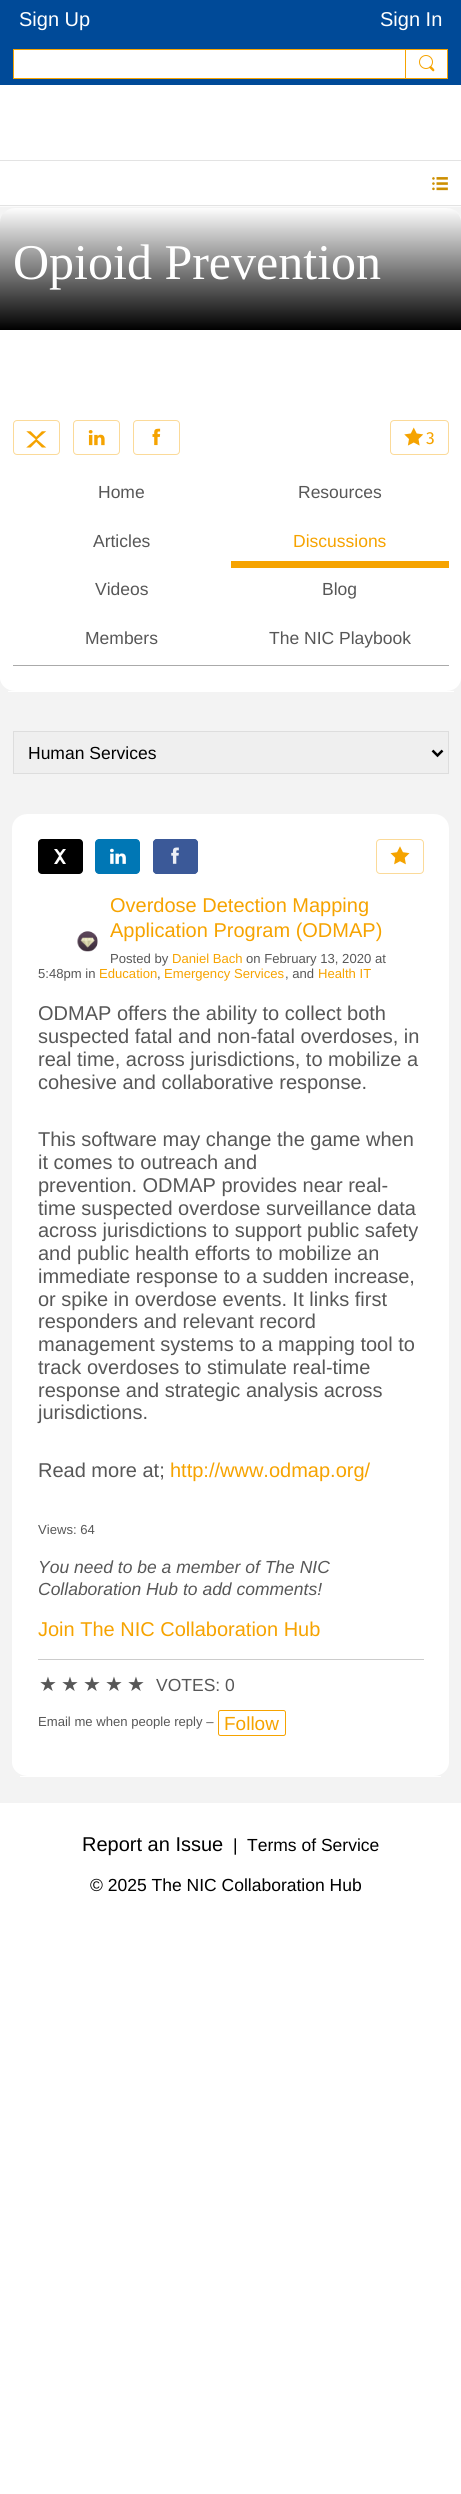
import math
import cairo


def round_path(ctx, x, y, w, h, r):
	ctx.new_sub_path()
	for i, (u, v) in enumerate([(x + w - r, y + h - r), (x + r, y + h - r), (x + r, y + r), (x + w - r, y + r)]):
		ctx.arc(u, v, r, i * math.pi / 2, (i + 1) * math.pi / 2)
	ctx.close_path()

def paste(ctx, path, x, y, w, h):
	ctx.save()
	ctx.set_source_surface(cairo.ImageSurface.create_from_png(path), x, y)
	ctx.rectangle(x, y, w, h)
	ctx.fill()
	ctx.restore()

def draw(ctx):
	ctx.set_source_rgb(1, 1, 1)
	ctx.paint()
	ctx.set_source_rgb(0, 0.29, 0.596)
	ctx.rectangle(0, 0, 461, 85)
	ctx.fill()
	ctx.select_font_face('Liberation Sans')
	ctx.set_font_size(20)
	ctx.set_source_rgb(1, 1, 1)
	ctx.move_to(19, 26)
	ctx.show_text('Sign Up')
	ctx.move_to(380, 26)
	ctx.show_text('Sign In')
	ctx.rectangle(13.5, 49.5, 392, 29)
	ctx.fill_preserve()
	ctx.set_source_rgb(0.961, 0.639, 0)
	ctx.set_line_width(1)
	ctx.stroke()
	ctx.set_source_rgb(1, 1, 1)
	ctx.rectangle(405.5, 49.5, 42, 29)
	ctx.fill_preserve()
	ctx.set_source_rgb(0.961, 0.639, 0)
	ctx.stroke()
	ctx.arc(426, 62, 6.5, 0, 2 * math.pi)
	ctx.stroke()
	ctx.new_path()
	ctx.move_to(431.5, 66.5)
	ctx.line_to(433.5, 68.5)
	ctx.curve_to(435.5, 70.5, 433.5, 72, 432.5, 71)
	ctx.line_to(429.5, 68)
	ctx.curve_to(428.5, 67, 430.5, 65.5, 431.5, 66.5)
	ctx.close_path()
	ctx.fill()
	ctx.set_source_rgb(0.89, 0.89, 0.89)
	ctx.rectangle(0, 160, 461, 1)
	ctx.fill()
	ctx.rectangle(0, 205, 461, 1)
	ctx.fill()
	paste(ctx, 'media/1.png', 432, 177, 16, 14)
	ctx.set_source_rgb(0.953, 0.953, 0.953)
	ctx.rectangle(0, 207, 461, 1596)
	ctx.fill()
	ctx.set_source_rgb(0.984, 0.984, 0.984)
	ctx.rectangle(0, 206, 461, 1)
	ctx.fill()
	ctx.set_source_rgb(1, 1, 1)
	ctx.new_path()
	ctx.move_to(15, 208)
	ctx.line_to(446, 208)
	ctx.curve_to(455, 208, 461, 214, 461, 222)
	ctx.line_to(461, 678)
	ctx.curve_to(461, 685, 455, 691, 446, 691)
	ctx.line_to(15, 691)
	ctx.curve_to(7, 691, 0, 685, 0, 678)
	ctx.line_to(0, 222)
	ctx.curve_to(0, 214, 7, 208, 15, 208)
	ctx.close_path()
	ctx.fill()
	ctx.rectangle(8, 691, 446, 1)
	ctx.fill()
	gradient = cairo.LinearGradient(231, 207, 231, 330)
	gradient.add_color_stop_rgba(0, 0, 0, 0, 0)
	gradient.add_color_stop_rgba(1, 0, 0, 0, 1)
	ctx.set_source(gradient)
	ctx.new_path()
	ctx.move_to(14, 208)
	ctx.line_to(447, 208)
	ctx.curve_to(454.5, 208, 461, 214.5, 461, 222)
	ctx.line_to(461, 330)
	ctx.line_to(0, 330)
	ctx.line_to(0, 222)
	ctx.curve_to(0, 214.5, 6.5, 208, 14, 208)
	ctx.close_path()
	ctx.fill()
	ctx.select_font_face('Liberation Serif')
	ctx.set_font_size(50)
	ctx.set_source_rgb(1, 1, 1)
	ctx.move_to(13, 279)
	ctx.show_text('Opioid Prevention')
	round_path(ctx, 13.5, 420.5, 46, 34, 3.5)
	ctx.set_source_rgb(0.984, 0.855, 0.6)
	ctx.stroke()
	paste(ctx, 'media/2.png', 26, 431, 21, 17)
	round_path(ctx, 73.5, 420.5, 46, 34, 3.5)
	ctx.stroke()
	paste(ctx, 'media/3.png', 88, 430, 17, 16)
	round_path(ctx, 133.5, 420.5, 46, 34, 3.5)
	ctx.stroke()
	paste(ctx, 'media/4.png', 152, 428, 9, 18)
	round_path(ctx, 390.5, 420.5, 58, 34, 3.5)
	ctx.stroke()
	paste(ctx, 'media/5.png', 404, 427, 20, 19)
	ctx.select_font_face('Fira Sans')
	ctx.set_font_size(17.5)
	ctx.set_source_rgb(0.961, 0.639, 0)
	ctx.move_to(426, 444)
	ctx.show_text('3')
	ctx.set_source_rgb(0.667, 0.667, 0.667)
	ctx.rectangle(13, 665, 436, 1)
	ctx.fill()
	ctx.select_font_face('Liberation Sans')
	ctx.set_source_rgb(0.341, 0.341, 0.341)
	for x, y, s in [
		(98, 498, 'Home'),
		(298, 498, 'Resources'),
		(93, 547, 'Articles'),
	]:
		ctx.move_to(x, y)
		ctx.show_text(s)
	ctx.set_source_rgb(0.961, 0.639, 0)
	ctx.rectangle(231, 561, 218, 7)
	ctx.fill()
	ctx.move_to(293, 547)
	ctx.show_text('Discussions')
	ctx.set_source_rgb(0.341, 0.341, 0.341)
	for x, y, s in [
		(95, 595, 'Videos'),
		(322, 595, 'Blog'),
		(85, 644, 'Members'),
		(269, 644, 'The NIC Playbook'),
	]:
		ctx.move_to(x, y)
		ctx.show_text(s)
	ctx.set_source_rgb(0.937, 0.937, 0.937)
	ctx.rectangle(13.5, 731.5, 435, 42)
	ctx.fill_preserve()
	ctx.set_source_rgb(0.867, 0.867, 0.867)
	ctx.stroke()
	ctx.new_path()
	ctx.move_to(432.5, 750.5)
	ctx.line_to(437.5, 755.5)
	ctx.line_to(442.5, 750.5)
	ctx.set_source_rgb(0, 0, 0)
	ctx.set_line_width(2.5)
	ctx.stroke()
	ctx.move_to(28, 759)
	ctx.show_text('Human Services')
	ctx.set_source_rgb(1, 1, 1)
	ctx.new_path()
	ctx.move_to(28, 814)
	ctx.line_to(434, 814)
	ctx.curve_to(442, 814, 449, 820, 449, 829)
	ctx.line_to(449, 1762)
	ctx.curve_to(449, 1770, 442, 1776, 434, 1776)
	ctx.line_to(28, 1776)
	ctx.curve_to(19, 1776, 12, 1770, 12, 1762)
	ctx.line_to(12, 829)
	ctx.curve_to(12, 820, 19, 814, 28, 814)
	ctx.close_path()
	ctx.fill()
	ctx.rectangle(20, 1776, 421, 1)
	ctx.fill()
	ctx.set_source_rgb(0, 0, 0)
	round_path(ctx, 38, 839, 45, 35, 4)
	ctx.fill()
	ctx.set_source_rgb(1, 1, 1)
	ctx.set_fill_rule(cairo.FILL_RULE_EVEN_ODD)
	ctx.new_path()
	ctx.move_to(54, 849)
	ctx.line_to(59, 856)
	ctx.line_to(54, 864)
	ctx.line_to(57, 864)
	ctx.line_to(60, 859.5)
	ctx.line_to(63, 864)
	ctx.line_to(66, 864)
	ctx.line_to(61, 856)
	ctx.line_to(66, 849)
	ctx.line_to(63, 849)
	ctx.line_to(60, 853)
	ctx.line_to(57, 849)
	ctx.close_path()
	ctx.fill()
	paste(ctx, 'media/6.png', 95, 839, 45, 35)
	ctx.set_source_rgb(0.231, 0.349, 0.596)
	round_path(ctx, 153, 839, 45, 35, 4)
	ctx.fill()
	paste(ctx, 'media/7.png', 153, 839, 45, 35)
	round_path(ctx, 376.5, 839.5, 47, 34, 3.5)
	ctx.set_source_rgb(0.984, 0.855, 0.6)
	ctx.set_line_width(1)
	ctx.stroke()
	paste(ctx, 'media/8.png', 390, 846, 20, 19)
	ctx.set_font_size(20)
	ctx.set_source_rgb(0.961, 0.639, 0)
	ctx.move_to(110, 912)
	ctx.show_text('Overdose Detection Mapping')
	ctx.move_to(110, 937)
	ctx.show_text('Application Program (ODMAP)')
	ctx.set_font_size(13.1)
	ctx.set_source_rgb(0.341, 0.341, 0.341)
	ctx.move_to(110, 963)
	ctx.show_text('Posted by')
	ctx.set_source_rgb(0.961, 0.639, 0)
	ctx.move_to(172, 963)
	ctx.show_text('Daniel Bach')
	ctx.set_source_rgb(0.341, 0.341, 0.341)
	ctx.move_to(246, 963)
	ctx.show_text('on February 13, 2020 at')
	ctx.move_to(38, 978)
	ctx.show_text('5:48pm in')
	ctx.set_source_rgb(0.961, 0.639, 0)
	ctx.move_to(99, 978)
	ctx.show_text('Education')
	ctx.set_source_rgb(0.341, 0.341, 0.341)
	ctx.move_to(157, 978)
	ctx.show_text(',')
	ctx.set_source_rgb(0.961, 0.639, 0)
	ctx.move_to(164, 978)
	ctx.show_text('Emergency Services')
	ctx.set_source_rgb(0.341, 0.341, 0.341)
	ctx.move_to(285, 978)
	ctx.show_text(', and')
	ctx.set_source_rgb(0.961, 0.639, 0)
	ctx.move_to(318, 978)
	ctx.show_text('Health IT')
	paste(ctx, 'media/9.png', 77, 931, 21, 21)
	ctx.set_font_size(20)
	ctx.set_source_rgb(0.341, 0.341, 0.341)
	for x, y, s in [
		(38, 1020, 'ODMAP offers the ability to collect both'),
		(38, 1043, 'suspected fatal and non-fatal overdoses, in'),
		(38, 1066, 'real time, across jurisdictions, to mobilize a'),
		(38, 1089, 'cohesive and collaborative response.'),
		(38, 1146, 'This software may change the game when'),
		(38, 1169, 'it comes to outreach and'),
		(38, 1192, 'prevention. ODMAP provides near real-'),
		(38, 1215, 'time suspected overdose surveillance data'),
		(38, 1237, 'across jurisdictions to support public safety'),
		(38, 1260, 'and public health efforts to mobilize an'),
		(38, 1283, 'immediate response to a sudden increase,'),
		(38, 1306, 'or spike in overdose events. It links first'),
		(38, 1328, 'responders and relevant record'),
		(38, 1351, 'management systems to a mapping tool to'),
		(38, 1374, 'track overdoses to stimulate real-time'),
		(38, 1397, 'response and strategic analysis across'),
		(38, 1419, 'jurisdictions.'),
		(38, 1477, 'Read more at;'),
	]:
		ctx.move_to(x, y)
		ctx.show_text(s)
	ctx.set_source_rgb(0.961, 0.639, 0)
	ctx.move_to(170, 1477)
	ctx.show_text('http://www.odmap.org/')
	ctx.set_font_size(13.1)
	ctx.set_source_rgb(0.341, 0.341, 0.341)
	ctx.move_to(38, 1534)
	ctx.show_text('Views: 64')
	ctx.select_font_face('Liberation Sans', cairo.FONT_SLANT_ITALIC)
	ctx.set_font_size(17.5)
	ctx.move_to(38, 1573)
	ctx.show_text('You need to be a member of The NIC')
	ctx.move_to(38, 1595)
	ctx.show_text('Collaboration Hub to add comments!')
	ctx.select_font_face('Liberation Sans')
	ctx.set_font_size(20)
	ctx.set_source_rgb(0.961, 0.639, 0)
	ctx.move_to(38, 1636)
	ctx.show_text('Join The NIC Collaboration Hub')
	ctx.set_source_rgb(0.8, 0.8, 0.8)
	ctx.rectangle(38, 1659, 386, 1)
	ctx.fill()
	ctx.select_font_face('DejaVu Sans')
	ctx.set_source_rgb(0.341, 0.341, 0.341)
	for x, y, s in [
		(39, 1691, '★'),
		(61, 1691, '★'),
		(83, 1691, '★'),
		(105, 1691, '★'),
		(127, 1691, '★'),
	]:
		ctx.move_to(x, y)
		ctx.show_text(s)
	ctx.select_font_face('Liberation Sans')
	ctx.set_font_size(17.5)
	ctx.move_to(156, 1691)
	ctx.show_text('VOTES: 0')
	ctx.set_font_size(13.1)
	ctx.move_to(38, 1726)
	ctx.show_text('Email me when people reply –')
	round_path(ctx, 218.5, 1710.5, 67, 25, 2)
	ctx.set_source_rgb(0.961, 0.639, 0)
	ctx.stroke()
	ctx.set_font_size(19)
	ctx.move_to(224, 1730)
	ctx.show_text('Follow')
	ctx.set_font_size(20)
	ctx.set_source_rgb(0, 0, 0)
	ctx.move_to(82, 1851)
	ctx.show_text('Report an Issue')
	ctx.set_font_size(17.5)
	for x, y, s in [
		(233, 1851, '|'),
		(247, 1851, 'Terms of Service'),
		(90, 1891, '© 2025 The NIC Collaboration Hub'),
	]:
		ctx.move_to(x, y)
		ctx.show_text(s)


surface = cairo.ImageSurface(cairo.FORMAT_RGB24, 461, 2494)
ctx = cairo.Context(surface)
options = cairo.FontOptions()
options.set_hint_metrics(cairo.HINT_METRICS_OFF)
options.set_hint_style(cairo.HINT_STYLE_NONE)
ctx.set_font_options(options)
ctx.set_miter_limit(4)
draw(ctx)
surface.write_to_png('image.png')
